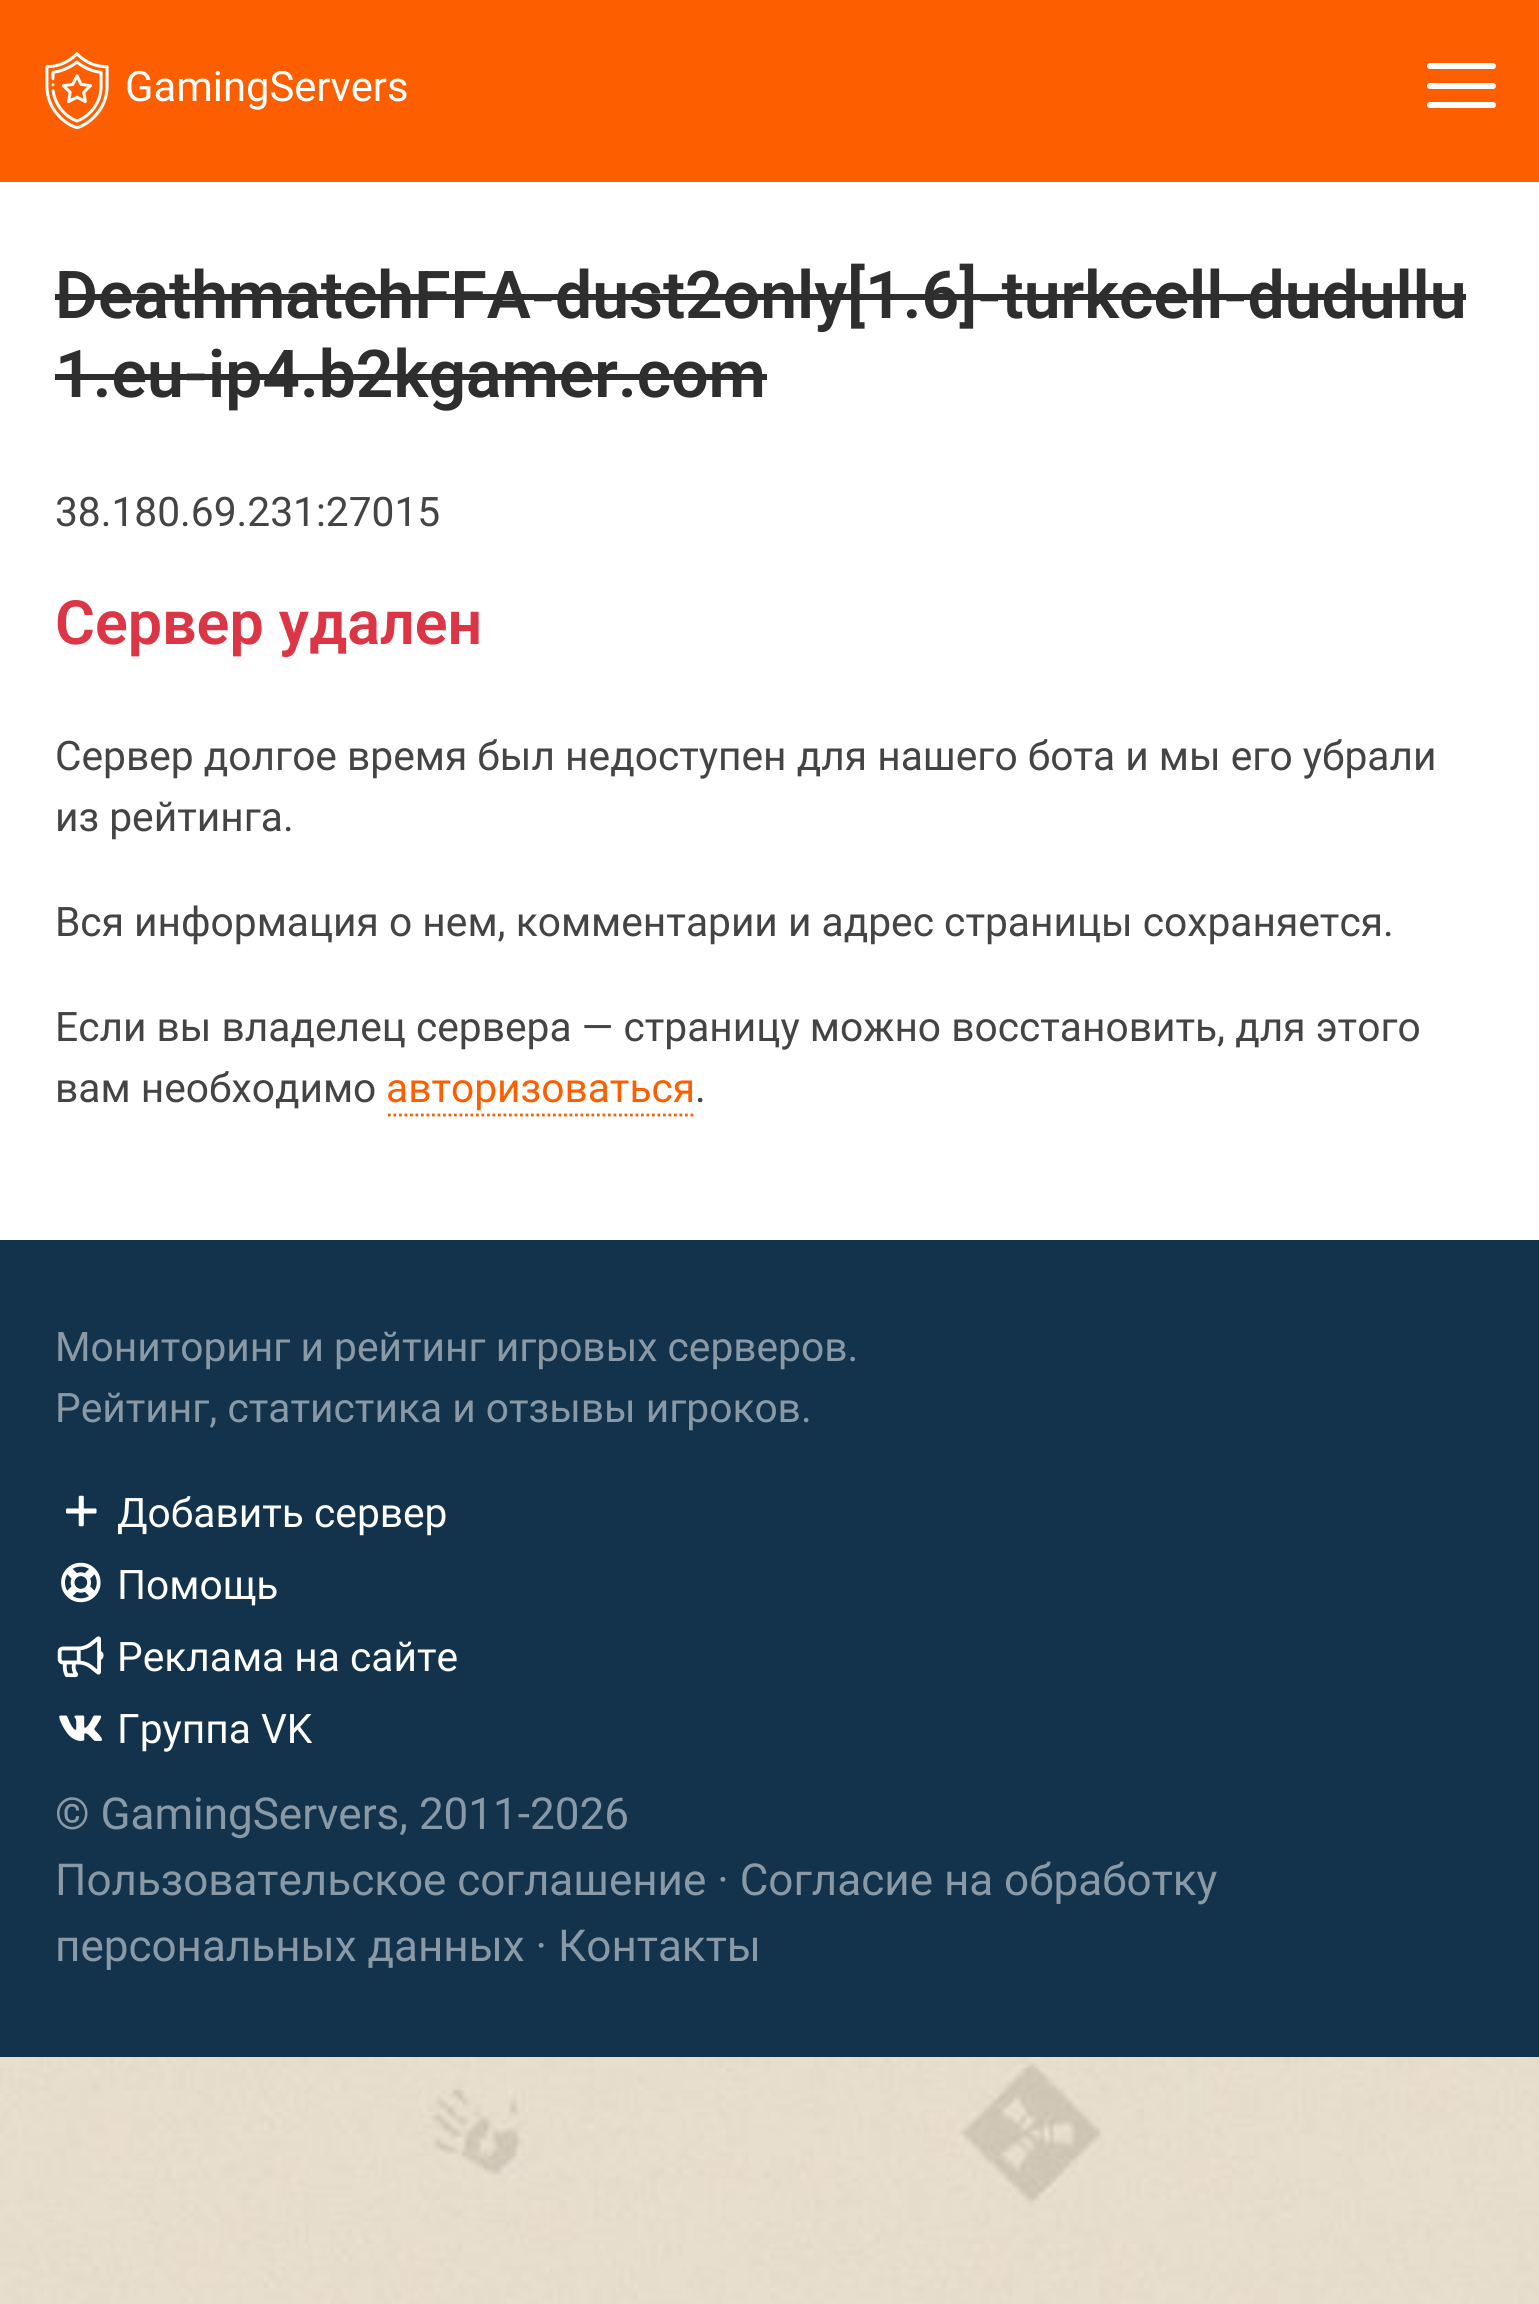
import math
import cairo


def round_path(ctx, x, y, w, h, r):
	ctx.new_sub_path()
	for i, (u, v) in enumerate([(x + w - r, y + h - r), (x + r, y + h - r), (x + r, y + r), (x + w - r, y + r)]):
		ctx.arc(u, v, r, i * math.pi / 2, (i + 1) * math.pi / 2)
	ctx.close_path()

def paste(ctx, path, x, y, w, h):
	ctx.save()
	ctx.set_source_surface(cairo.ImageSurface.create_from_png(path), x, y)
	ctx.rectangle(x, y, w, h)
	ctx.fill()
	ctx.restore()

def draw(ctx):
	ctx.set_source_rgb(1, 1, 1)
	ctx.paint()
	paste(ctx, 'media/1.png', 0, 2057, 1539, 247)
	ctx.set_source_rgb(0.992, 0.373, 0)
	ctx.rectangle(0, 0, 1539, 182)
	ctx.fill()
	paste(ctx, 'media/2.png', 45, 52, 64, 77)
	ctx.select_font_face('Roboto')
	ctx.set_font_size(41.75)
	ctx.set_source_rgb(1, 1, 1)
	ctx.move_to(125, 101)
	ctx.show_text('GamingServers')
	round_path(ctx, 1427, 83, 69, 6, 3)
	ctx.fill()
	round_path(ctx, 1427, 63, 69, 6, 3)
	ctx.fill()
	round_path(ctx, 1427, 102, 69, 6, 3)
	ctx.fill()
	ctx.select_font_face('Roboto SemiBold')
	ctx.set_font_size(66)
	ctx.set_source_rgb(0.18, 0.18, 0.18)
	ctx.move_to(55, 318)
	ctx.show_text('DeathmatchFFA-dust2only[1.6]-turkcell-dudullu')
	ctx.rectangle(55, 294, 1411, 6)
	ctx.fill()
	ctx.move_to(55, 397)
	ctx.show_text('1.eu-ip4.b2kgamer.com')
	ctx.rectangle(55, 374, 712, 6)
	ctx.fill()
	ctx.select_font_face('Roboto')
	ctx.set_font_size(40.7)
	ctx.set_source_rgb(0.267, 0.267, 0.267)
	ctx.move_to(55, 526)
	ctx.show_text('38.180.69.231:27015')
	ctx.select_font_face('Roboto SemiBold')
	ctx.set_font_size(61)
	ctx.set_source_rgb(0.863, 0.208, 0.271)
	ctx.move_to(55, 644)
	ctx.show_text('Сервер удален')
	ctx.select_font_face('Roboto')
	ctx.set_font_size(40.7)
	ctx.set_source_rgb(0.267, 0.267, 0.267)
	for x, y, s in [
		(55, 770, 'Сервер долгое время был недоступен для нашего бота и мы его убрали'),
		(55, 831, 'из рейтинга.'),
		(55, 936, 'Вся информация о нем, комментарии и адрес страницы сохраняется.'),
		(55, 1041, 'Если вы владелец сервера — страницу можно восстановить, для этого'),
		(55, 1102, 'вам необходимо'),
	]:
		ctx.move_to(x, y)
		ctx.show_text(s)
	ctx.set_source_rgb(0.992, 0.373, 0)
	ctx.move_to(386, 1102)
	ctx.show_text('авторизоваться')
	ctx.new_path()
	ctx.move_to(388, 1115)
	ctx.line_to(696, 1115)
	ctx.set_line_width(2.8)
	ctx.set_dash([2.75, 2.75])
	ctx.stroke()
	ctx.set_source_rgb(0.267, 0.267, 0.267)
	ctx.move_to(695, 1102)
	ctx.show_text('.')
	ctx.set_source_rgb(0.075, 0.2, 0.298)
	ctx.rectangle(0, 1240, 1539, 817)
	ctx.fill()
	ctx.set_source_rgb(0.537, 0.6, 0.651)
	ctx.move_to(55, 1361)
	ctx.show_text('Мониторинг и рейтинг игровых серверов.')
	ctx.move_to(55, 1422)
	ctx.show_text('Рейтинг, статистика и отзывы игроков.')
	paste(ctx, 'media/3.png', 66, 1495, 31, 32)
	ctx.set_source_rgb(1, 1, 1)
	ctx.move_to(117, 1527)
	ctx.show_text('Добавить сервер')
	paste(ctx, 'media/4.png', 61, 1562, 40, 41)
	ctx.move_to(117, 1599)
	ctx.show_text('Помощь')
	paste(ctx, 'media/5.png', 57, 1636, 47, 42)
	ctx.move_to(117, 1671)
	ctx.show_text('Реклама на сайте')
	paste(ctx, 'media/6.png', 59, 1715, 43, 26)
	ctx.move_to(117, 1743)
	ctx.show_text('Группа VK')
	ctx.set_font_size(44)
	ctx.set_source_rgb(0.537, 0.6, 0.651)
	for x, y, s in [
		(55, 1829, '© GamingServers, 2011-2026'),
		(55, 1895, 'Пользовательское соглашение · Согласие на обработку'),
		(55, 1961, 'персональных данных · Контакты'),
	]:
		ctx.move_to(x, y)
		ctx.show_text(s)


surface = cairo.ImageSurface(cairo.FORMAT_RGB24, 1539, 2304)
ctx = cairo.Context(surface)
options = cairo.FontOptions()
options.set_hint_metrics(cairo.HINT_METRICS_OFF)
options.set_hint_style(cairo.HINT_STYLE_NONE)
ctx.set_font_options(options)
ctx.set_miter_limit(4)
draw(ctx)
surface.write_to_png('image.png')
